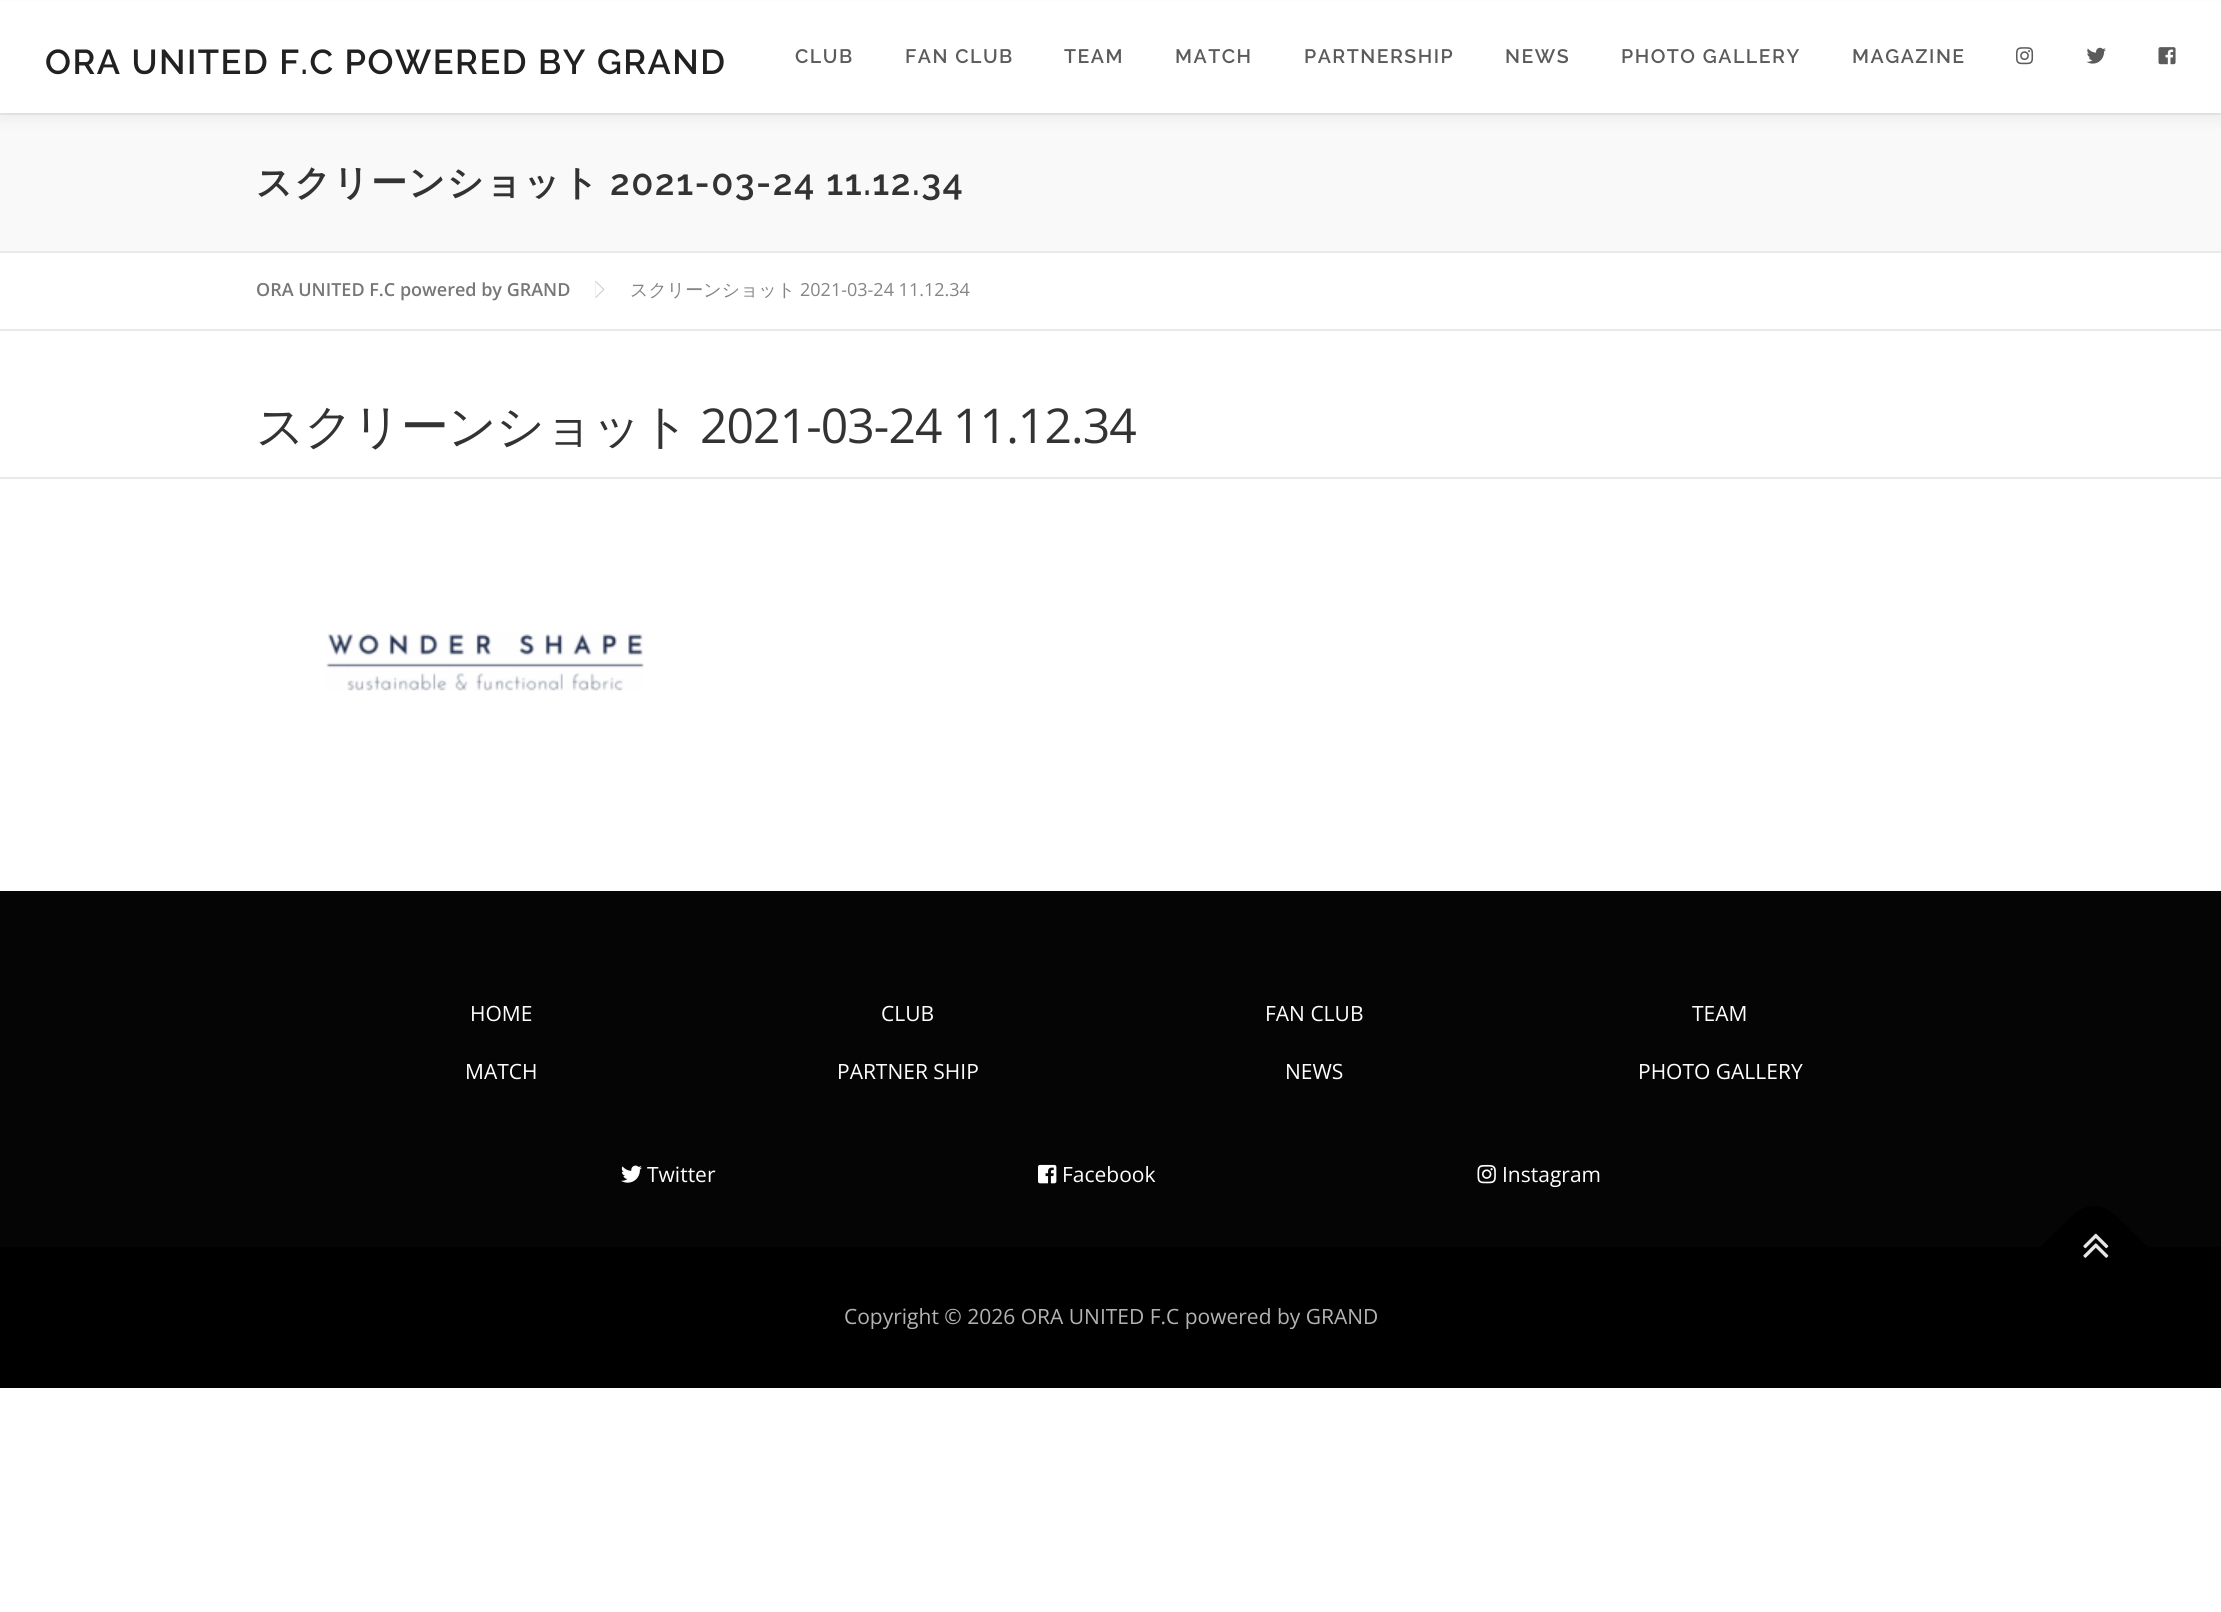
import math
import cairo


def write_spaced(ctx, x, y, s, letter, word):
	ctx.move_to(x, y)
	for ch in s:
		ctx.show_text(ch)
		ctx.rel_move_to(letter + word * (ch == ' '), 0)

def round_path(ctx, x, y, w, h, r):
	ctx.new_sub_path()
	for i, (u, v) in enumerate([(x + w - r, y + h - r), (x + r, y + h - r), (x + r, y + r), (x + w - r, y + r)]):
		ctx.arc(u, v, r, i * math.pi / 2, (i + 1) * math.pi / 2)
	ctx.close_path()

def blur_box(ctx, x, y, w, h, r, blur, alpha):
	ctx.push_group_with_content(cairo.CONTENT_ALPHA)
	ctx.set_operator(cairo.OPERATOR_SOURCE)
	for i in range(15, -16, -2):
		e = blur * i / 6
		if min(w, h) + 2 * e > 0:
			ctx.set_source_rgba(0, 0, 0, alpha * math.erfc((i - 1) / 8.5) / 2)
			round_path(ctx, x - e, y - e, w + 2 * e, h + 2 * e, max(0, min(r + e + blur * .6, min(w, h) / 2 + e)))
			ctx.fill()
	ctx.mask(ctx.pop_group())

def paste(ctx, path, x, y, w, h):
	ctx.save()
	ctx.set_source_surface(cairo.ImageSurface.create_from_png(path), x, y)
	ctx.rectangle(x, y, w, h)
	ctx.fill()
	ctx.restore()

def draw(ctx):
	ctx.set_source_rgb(1, 1, 1)
	ctx.paint()
	ctx.set_source_rgb(0.973, 0.976, 0.976)
	ctx.rectangle(0, 115, 2221, 136)
	ctx.fill()
	ctx.set_source_rgb(0.914, 0.914, 0.914)
	ctx.rectangle(0, 113, 2221, 2)
	ctx.fill()
	ctx.set_source_rgb(0.196, 0.196, 0.196)
	blur_box(ctx, 0, 8, 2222, 112, 0, 7.5, 0.06)
	ctx.set_source_rgb(1, 1, 1)
	ctx.rectangle(0, 2, 2221, 111)
	ctx.fill()
	ctx.select_font_face('Raleway SemiBold')
	ctx.set_font_size(34.5)
	ctx.set_source_rgb(0.129, 0.129, 0.129)
	write_spaced(ctx, 45, 74, 'ORA UNITED F.C POWERED BY GRAND', 1.5, 0)
	ctx.set_font_size(19.5)
	ctx.set_source_rgb(0.357, 0.357, 0.357)
	for x, y, s in [
		(795, 63, 'CLUB'),
		(905, 63, 'FAN CLUB'),
		(1064, 63, 'TEAM'),
		(1175, 63, 'MATCH'),
		(1304, 63, 'PARTNERSHIP'),
		(1505, 63, 'NEWS'),
		(1621, 63, 'PHOTO GALLERY'),
		(1852, 63, 'MAGAZINE'),
	]:
		write_spaced(ctx, x, y, s, 1.5, 0)
	paste(ctx, 'media/1.png', 2016, 47, 18, 18)
	paste(ctx, 'media/2.png', 2086, 47, 20, 17)
	paste(ctx, 'media/3.png', 2158, 47, 18, 18)
	ctx.set_source_rgb(0.914, 0.914, 0.914)
	ctx.rectangle(0, 251, 2221, 2)
	ctx.fill()
	ctx.select_font_face('WenQuanYi Zen Hei', cairo.FONT_SLANT_NORMAL, cairo.FONT_WEIGHT_BOLD)
	ctx.set_font_size(36)
	ctx.set_source_rgb(0.2, 0.2, 0.2)
	write_spaced(ctx, 256, 195, 'スクリーンショット', 1.5, 0)
	ctx.select_font_face('Raleway SemiBold')
	write_spaced(ctx, 610, 195, '2021-03-24 11.12.34', 1.5, 0)
	ctx.set_source_rgb(0.914, 0.914, 0.914)
	ctx.rectangle(0, 329, 2221, 2)
	ctx.fill()
	ctx.select_font_face('Open Sans SemiBold')
	ctx.set_font_size(18)
	ctx.set_source_rgb(0.467, 0.467, 0.467)
	ctx.move_to(256, 296)
	ctx.show_text('ORA UNITED F.C powered by GRAND')
	ctx.set_source_rgb(0.8, 0.8, 0.8)
	ctx.new_path()
	ctx.move_to(595.5, 298.5)
	ctx.line_to(595.5, 280.5)
	ctx.line_to(604.5, 289.5)
	ctx.close_path()
	ctx.fill()
	ctx.set_source_rgb(1, 1, 1)
	ctx.new_path()
	ctx.move_to(595.5, 297)
	ctx.line_to(595.5, 282)
	ctx.line_to(603, 289.5)
	ctx.close_path()
	ctx.fill()
	ctx.select_font_face('WenQuanYi Zen Hei Medium')
	ctx.set_source_rgb(0.522, 0.522, 0.522)
	ctx.move_to(630, 296)
	ctx.show_text('スクリーンショット')
	ctx.select_font_face('Open Sans')
	ctx.move_to(800, 296)
	ctx.show_text('2021-03-24 11.12.34')
	ctx.set_source_rgb(0.914, 0.914, 0.914)
	ctx.rectangle(0, 477, 2221, 2)
	ctx.fill()
	ctx.select_font_face('WenQuanYi Zen Hei Medium')
	ctx.set_font_size(48)
	ctx.set_source_rgb(0.2, 0.2, 0.2)
	write_spaced(ctx, 256, 443, 'スクリーンショット', -0.9, 0)
	ctx.select_font_face('Open Sans')
	write_spaced(ctx, 700, 443, '2021-03-24 11.12.34', -0.9, 0)
	paste(ctx, 'media/4.png', 326, 633, 318, 58)
	ctx.set_source_rgb(0.02, 0.02, 0.02)
	ctx.rectangle(0, 891, 2221, 356)
	ctx.fill()
	ctx.set_font_size(21)
	ctx.set_source_rgb(1, 1, 1)
	for x, y, s in [
		(470, 1021, 'HOME'),
		(881, 1021, 'CLUB'),
		(1265, 1021, 'FAN CLUB'),
		(1692, 1021, 'TEAM'),
		(465, 1079, 'MATCH'),
		(837, 1079, 'PARTNER SHIP'),
		(1285, 1079, 'NEWS'),
		(1638, 1079, 'PHOTO GALLERY'),
	]:
		ctx.move_to(x, y)
		ctx.show_text(s)
	paste(ctx, 'media/5.png', 621, 1165, 21, 18)
	ctx.move_to(647, 1182)
	ctx.show_text('Twitter')
	paste(ctx, 'media/6.png', 1038, 1164, 19, 20)
	ctx.move_to(1062, 1182)
	ctx.show_text('Facebook')
	paste(ctx, 'media/7.png', 1477, 1164, 19, 20)
	ctx.move_to(1502, 1182)
	ctx.show_text('Instagram')
	ctx.set_source_rgb(0, 0, 0)
	ctx.rectangle(0, 1247, 2221, 141)
	ctx.fill()
	ctx.new_path()
	ctx.move_to(2041, 1246)
	ctx.line_to(2073, 1215)
	ctx.curve_to(2085, 1203, 2103, 1203, 2115, 1215)
	ctx.line_to(2147, 1246)
	ctx.line_to(2094, 1299)
	ctx.close_path()
	ctx.fill()
	paste(ctx, 'media/8.png', 2083, 1233, 26, 25)
	ctx.set_source_rgb(0.702, 0.702, 0.702)
	ctx.move_to(844, 1324)
	ctx.show_text('Copyright © 2026 ORA UNITED F.C powered by GRAND')


surface = cairo.ImageSurface(cairo.FORMAT_RGB24, 2221, 1612)
ctx = cairo.Context(surface)
options = cairo.FontOptions()
options.set_hint_metrics(cairo.HINT_METRICS_OFF)
options.set_hint_style(cairo.HINT_STYLE_NONE)
ctx.set_font_options(options)
ctx.set_miter_limit(4)
draw(ctx)
surface.write_to_png('image.png')
